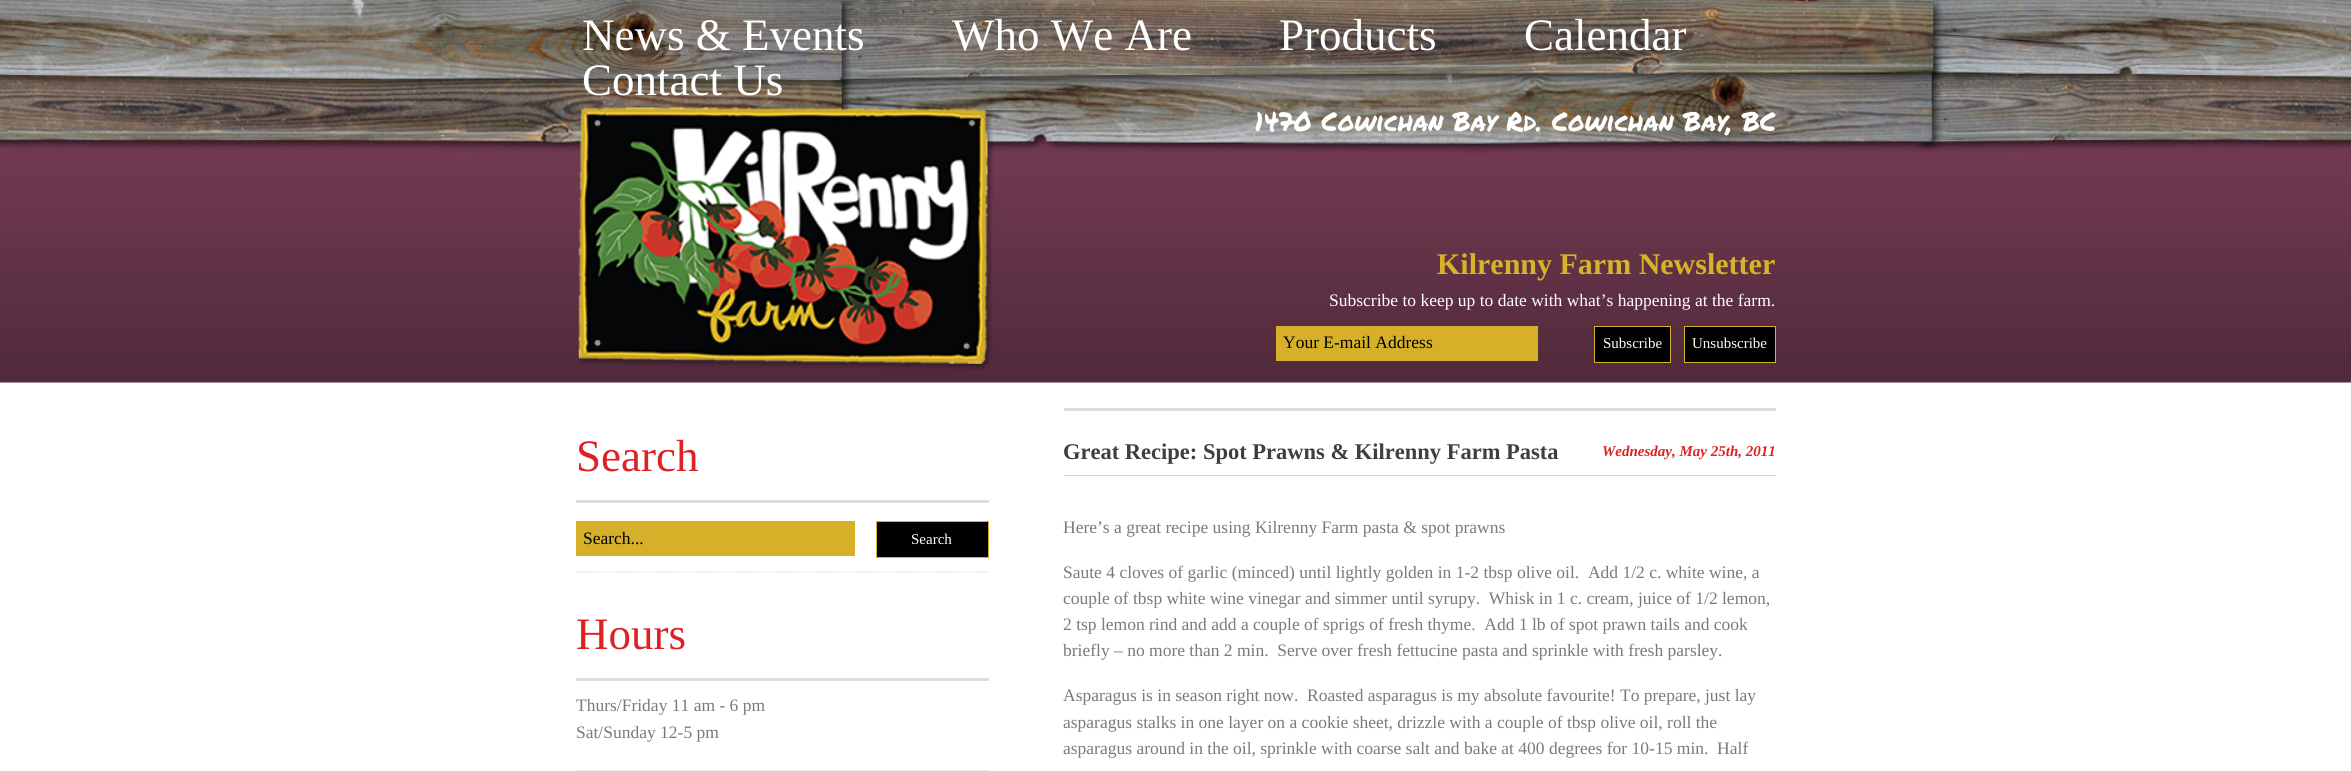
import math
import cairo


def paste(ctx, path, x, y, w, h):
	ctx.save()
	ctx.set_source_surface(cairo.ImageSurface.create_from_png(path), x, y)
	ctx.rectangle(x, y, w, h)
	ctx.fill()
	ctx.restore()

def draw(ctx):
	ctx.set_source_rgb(1, 1, 1)
	ctx.paint()
	paste(ctx, 'media/1.png', 0, 0, 2351, 383)
	ctx.select_font_face('Liberation Serif')
	ctx.set_font_size(45)
	ctx.set_source_rgb(1, 1, 1)
	for x, y, s in [
		(582, 50, 'News & Events'),
		(952, 50, 'Who We Are'),
		(1279, 50, 'Products'),
		(1524, 50, 'Calendar'),
		(582, 95, 'Contact Us'),
	]:
		ctx.move_to(x, y)
		ctx.show_text(s)
	paste(ctx, 'media/2.png', 578, 106, 416, 264)
	ctx.select_font_face('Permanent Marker')
	ctx.set_font_size(26.25)
	ctx.move_to(1255, 131)
	ctx.show_text('1470 Cowichan Bay Rd. Cowichan Bay, BC')
	ctx.select_font_face('Liberation Serif', cairo.FONT_SLANT_NORMAL, cairo.FONT_WEIGHT_BOLD)
	ctx.set_font_size(30)
	ctx.set_source_rgb(0.843, 0.702, 0.157)
	ctx.move_to(1437, 274)
	ctx.show_text('Kilrenny Farm Newsletter')
	ctx.select_font_face('Liberation Serif')
	ctx.set_font_size(17.5)
	ctx.set_source_rgb(1, 1, 1)
	ctx.move_to(1329, 306)
	ctx.show_text('Subscribe to keep up to date with what’s happening at the farm.')
	ctx.set_source_rgb(0.835, 0.69, 0.157)
	ctx.rectangle(1276, 326, 262, 35)
	ctx.fill()
	ctx.set_source_rgb(0, 0, 0)
	ctx.move_to(1283, 348)
	ctx.show_text('Your E-mail Address')
	ctx.rectangle(1594.5, 326.5, 76, 36)
	ctx.fill_preserve()
	ctx.set_source_rgb(0.835, 0.69, 0.157)
	ctx.set_line_width(1)
	ctx.stroke()
	ctx.set_font_size(15)
	ctx.set_source_rgb(1, 1, 0.957)
	ctx.move_to(1603, 348)
	ctx.show_text('Subscribe')
	ctx.set_source_rgb(0, 0, 0)
	ctx.rectangle(1684.5, 326.5, 91, 36)
	ctx.fill_preserve()
	ctx.set_source_rgb(0.835, 0.69, 0.157)
	ctx.stroke()
	ctx.set_source_rgb(1, 1, 0.957)
	ctx.move_to(1692, 348)
	ctx.show_text('Unsubscribe')
	ctx.new_path()
	ctx.move_to(576, 572)
	ctx.line_to(989, 572)
	ctx.set_source_rgb(0.867, 0.867, 0.867)
	ctx.set_line_width(1.2)
	ctx.set_dash([1.25, 1.25])
	ctx.stroke()
	ctx.rectangle(576, 500, 413, 3)
	ctx.fill()
	ctx.set_font_size(45)
	ctx.set_source_rgb(0.875, 0.129, 0.145)
	ctx.move_to(576, 471)
	ctx.show_text('Search')
	ctx.set_source_rgb(0.835, 0.69, 0.157)
	ctx.rectangle(576, 521, 279, 35)
	ctx.fill()
	ctx.set_font_size(17.5)
	ctx.set_source_rgb(0, 0, 0)
	ctx.move_to(583, 544)
	ctx.show_text('Search...')
	ctx.rectangle(876.5, 521.5, 112, 36)
	ctx.fill_preserve()
	ctx.set_source_rgb(0.835, 0.69, 0.157)
	ctx.set_line_width(1)
	ctx.set_dash([])
	ctx.stroke()
	ctx.set_font_size(15)
	ctx.set_source_rgb(1, 1, 0.957)
	ctx.move_to(911, 544)
	ctx.show_text('Search')
	ctx.new_path()
	ctx.move_to(576, 770.5)
	ctx.line_to(989, 770.5)
	ctx.set_source_rgb(0.867, 0.867, 0.867)
	ctx.set_line_width(1.2)
	ctx.set_dash([1.25, 1.25])
	ctx.stroke()
	ctx.rectangle(576, 678, 413, 3)
	ctx.fill()
	ctx.set_font_size(45)
	ctx.set_source_rgb(0.875, 0.129, 0.145)
	ctx.move_to(576, 649)
	ctx.show_text('Hours')
	ctx.set_font_size(17.5)
	ctx.set_source_rgb(0.478, 0.478, 0.478)
	ctx.move_to(576, 711)
	ctx.show_text('Thurs/Friday 11 am - 6 pm')
	ctx.move_to(576, 738)
	ctx.show_text('Sat/Sunday 12-5 pm')
	ctx.set_source_rgb(0.867, 0.867, 0.867)
	ctx.rectangle(1064, 408, 712, 3)
	ctx.fill()
	ctx.set_source_rgb(0.827, 0.827, 0.827)
	ctx.rectangle(1064, 475, 712, 1)
	ctx.fill()
	ctx.select_font_face('Liberation Serif', cairo.FONT_SLANT_NORMAL, cairo.FONT_WEIGHT_BOLD)
	ctx.set_font_size(22.5)
	ctx.set_source_rgb(0.247, 0.247, 0.247)
	ctx.move_to(1063, 459)
	ctx.show_text('Great Recipe: Spot Prawns & Kilrenny Farm Pasta')
	ctx.select_font_face('Liberation Serif', cairo.FONT_SLANT_ITALIC, cairo.FONT_WEIGHT_BOLD)
	ctx.set_font_size(15)
	ctx.set_source_rgb(0.875, 0.129, 0.145)
	ctx.move_to(1602, 456)
	ctx.show_text('Wednesday, May 25th, 2011')
	ctx.select_font_face('Liberation Serif')
	ctx.set_font_size(17.5)
	ctx.set_source_rgb(0.478, 0.478, 0.478)
	for x, y, s in [
		(1063, 533, 'Here’s a great recipe using Kilrenny Farm pasta & spot prawns'),
		(1063, 578, 'Saute 4 cloves of garlic (minced) until lightly golden in 1-2 tbsp olive oil.  Add 1/2 c. white wine, a'),
		(1063, 604, 'couple of tbsp white wine vinegar and simmer until syrupy.  Whisk in 1 c. cream, juice of 1/2 lemon,'),
		(1063, 630, '2 tsp lemon rind and add a couple of sprigs of fresh thyme.  Add 1 lb of spot prawn tails and cook'),
		(1063, 656, 'briefly – no more than 2 min.  Serve over fresh fettucine pasta and sprinkle with fresh parsley.'),
		(1063, 701, 'Asparagus is in season right now.  Roasted asparagus is my absolute favourite! To prepare, just lay'),
		(1063, 728, 'asparagus stalks in one layer on a cookie sheet, drizzle with a couple of tbsp olive oil, roll the'),
		(1063, 754, 'asparagus around in the oil, sprinkle with coarse salt and bake at 400 degrees for 10-15 min.  Half'),
	]:
		ctx.move_to(x, y)
		ctx.show_text(s)


surface = cairo.ImageSurface(cairo.FORMAT_RGB24, 2351, 771)
ctx = cairo.Context(surface)
options = cairo.FontOptions()
options.set_hint_metrics(cairo.HINT_METRICS_OFF)
options.set_hint_style(cairo.HINT_STYLE_NONE)
ctx.set_font_options(options)
ctx.set_miter_limit(4)
draw(ctx)
surface.write_to_png('image.png')
